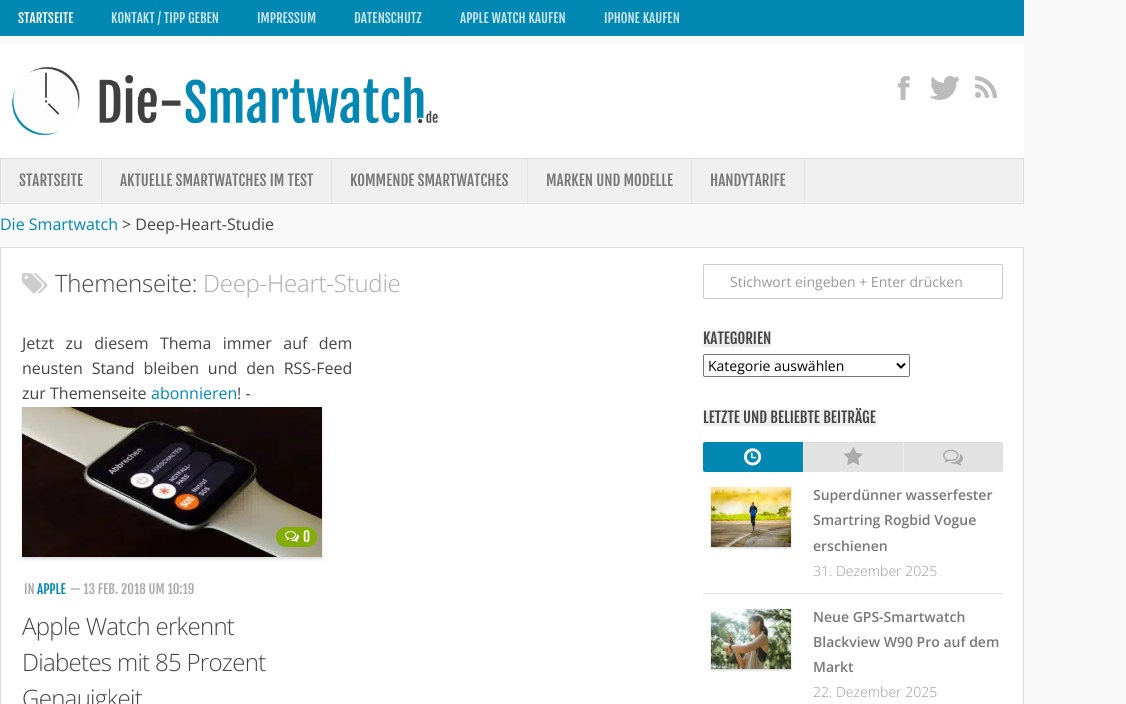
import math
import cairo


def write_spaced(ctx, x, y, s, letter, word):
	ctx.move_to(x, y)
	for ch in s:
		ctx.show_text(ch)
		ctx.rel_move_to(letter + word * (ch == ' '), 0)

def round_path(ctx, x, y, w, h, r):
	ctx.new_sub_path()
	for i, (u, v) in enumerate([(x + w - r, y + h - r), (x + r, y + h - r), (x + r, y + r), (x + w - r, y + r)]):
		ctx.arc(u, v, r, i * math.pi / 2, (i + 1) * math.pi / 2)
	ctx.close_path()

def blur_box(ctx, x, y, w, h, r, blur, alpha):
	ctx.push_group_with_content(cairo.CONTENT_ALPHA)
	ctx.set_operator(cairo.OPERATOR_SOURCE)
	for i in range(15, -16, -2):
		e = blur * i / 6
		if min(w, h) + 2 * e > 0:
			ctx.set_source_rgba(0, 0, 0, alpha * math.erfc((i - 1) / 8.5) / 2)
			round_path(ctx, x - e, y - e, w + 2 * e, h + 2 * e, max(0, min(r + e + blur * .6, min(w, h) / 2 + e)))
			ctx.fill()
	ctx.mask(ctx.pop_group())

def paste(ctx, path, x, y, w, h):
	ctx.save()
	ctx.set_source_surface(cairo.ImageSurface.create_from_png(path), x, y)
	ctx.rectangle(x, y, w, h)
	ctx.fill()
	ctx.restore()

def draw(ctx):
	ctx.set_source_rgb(0.976, 0.976, 0.976)
	ctx.paint()
	ctx.set_source_rgb(0, 0.533, 0.698)
	ctx.rectangle(0, 0, 1024, 36)
	ctx.fill()
	ctx.select_font_face('Fjalla One')
	ctx.set_font_size(13)
	ctx.set_source_rgb(1, 1, 1)
	ctx.move_to(18, 23)
	ctx.show_text('STARTSEITE')
	ctx.set_source_rgb(0.8, 0.906, 0.941)
	for x, y, s in [
		(111, 23, 'KONTAKT / TIPP GEBEN'),
		(257, 23, 'IMPRESSUM'),
		(354, 23, 'DATENSCHUTZ'),
		(460, 23, 'APPLE WATCH KAUFEN'),
		(604, 23, 'IPHONE KAUFEN'),
	]:
		ctx.move_to(x, y)
		ctx.show_text(s)
	ctx.set_source_rgb(1, 1, 1)
	ctx.rectangle(0, 44, 1024, 114)
	ctx.fill()
	paste(ctx, 'media/1.png', 12, 66, 426, 70)
	paste(ctx, 'media/2.png', 898, 76, 12, 24)
	paste(ctx, 'media/3.png', 930, 76, 30, 24)
	paste(ctx, 'media/4.png', 975, 76, 22, 22)
	ctx.set_source_rgb(0.941, 0.941, 0.941)
	ctx.rectangle(1, 159, 1022, 43)
	ctx.fill()
	ctx.rectangle(0.5, 158.5, 1023, 45)
	ctx.set_source_rgb(0.867, 0.867, 0.867)
	ctx.set_line_width(1)
	ctx.stroke()
	ctx.set_source_rgb(0.898, 0.898, 0.898)
	ctx.rectangle(101, 159, 1, 44)
	ctx.fill()
	ctx.set_font_size(15)
	ctx.set_source_rgb(0.467, 0.467, 0.467)
	ctx.move_to(19, 186)
	ctx.show_text('STARTSEITE')
	ctx.set_source_rgb(0.898, 0.898, 0.898)
	ctx.rectangle(331, 159, 1, 44)
	ctx.fill()
	ctx.set_source_rgb(0.467, 0.467, 0.467)
	ctx.move_to(120, 186)
	ctx.show_text('AKTUELLE SMARTWATCHES IM TEST')
	ctx.set_source_rgb(0.898, 0.898, 0.898)
	ctx.rectangle(527, 159, 1, 44)
	ctx.fill()
	ctx.set_source_rgb(0.467, 0.467, 0.467)
	ctx.move_to(350, 186)
	ctx.show_text('KOMMENDE SMARTWATCHES')
	ctx.set_source_rgb(0.898, 0.898, 0.898)
	ctx.rectangle(691, 159, 1, 44)
	ctx.fill()
	ctx.set_source_rgb(0.467, 0.467, 0.467)
	ctx.move_to(546, 186)
	ctx.show_text('MARKEN UND MODELLE')
	ctx.set_source_rgb(0.898, 0.898, 0.898)
	ctx.rectangle(804, 159, 1, 44)
	ctx.fill()
	ctx.set_source_rgb(0.467, 0.467, 0.467)
	ctx.move_to(710, 186)
	ctx.show_text('HANDYTARIFE')
	ctx.select_font_face('Open Sans')
	ctx.set_font_size(16)
	ctx.set_source_rgb(0, 0.533, 0.698)
	ctx.move_to(0, 230)
	ctx.show_text('Die Smartwatch')
	ctx.set_source_rgb(0.267, 0.267, 0.267)
	ctx.move_to(122, 230)
	ctx.show_text('> Deep-Heart-Studie')
	ctx.set_source_rgb(1, 1, 1)
	ctx.rectangle(0, 246, 1024, 1)
	ctx.rectangle(1, 248, 1022, 456)
	ctx.fill()
	ctx.set_source_rgb(0.867, 0.867, 0.867)
	ctx.rectangle(0, 247, 1024, 1)
	ctx.rectangle(1023, 247, 1, 457)
	ctx.rectangle(0, 247, 1, 457)
	ctx.fill()
	paste(ctx, 'media/5.png', 22, 273, 26, 21)
	ctx.select_font_face('Open Sans Light')
	ctx.set_font_size(24)
	ctx.set_source_rgb(0.267, 0.267, 0.267)
	write_spaced(ctx, 55, 292, 'Themenseite:', -0.25, 0)
	ctx.set_source_rgb(0.667, 0.667, 0.667)
	write_spaced(ctx, 203, 292, 'Deep-Heart-Studie', -0.25, 0)
	ctx.select_font_face('Open Sans')
	ctx.set_font_size(16)
	ctx.set_source_rgb(0.267, 0.267, 0.267)
	write_spaced(ctx, 22, 349, 'Jetzt zu diesem Thema immer auf dem', 0, 7.25)
	write_spaced(ctx, 22, 374, 'neusten Stand bleiben und den RSS-Feed', 0, 4.75)
	ctx.move_to(22, 399)
	ctx.show_text('zur Themenseite')
	ctx.set_source_rgb(0, 0.533, 0.698)
	ctx.move_to(151, 399)
	ctx.show_text('abonnieren')
	ctx.set_source_rgb(0.267, 0.267, 0.267)
	ctx.move_to(237, 399)
	ctx.show_text('! -')
	ctx.set_source_rgb(0, 0, 0)
	blur_box(ctx, 22, 409, 300, 150, 0, 1.5, 0.15)
	paste(ctx, 'media/6.png', 22, 407, 300, 150)
	ctx.set_source_rgb(0.514, 0.678, 0.008)
	round_path(ctx, 276, 527, 41, 20, 10)
	ctx.fill()
	paste(ctx, 'media/7.png', 285, 531, 14, 11)
	ctx.select_font_face('Fjalla One')
	ctx.set_font_size(14)
	ctx.set_source_rgb(1, 1, 1)
	ctx.move_to(303, 542)
	ctx.show_text('0')
	ctx.set_font_size(13)
	ctx.set_source_rgb(0.667, 0.667, 0.667)
	ctx.move_to(24, 594)
	ctx.show_text('IN')
	ctx.set_source_rgb(0, 0.533, 0.698)
	ctx.move_to(37, 594)
	ctx.show_text('APPLE')
	ctx.set_source_rgb(0.667, 0.667, 0.667)
	ctx.move_to(70, 594)
	ctx.show_text('— 13 FEB. 2018 UM 10:19')
	ctx.select_font_face('Open Sans Light')
	ctx.set_font_size(24)
	ctx.set_source_rgb(0.267, 0.267, 0.267)
	for x, y, s in [
		(22, 635, 'Apple Watch erkennt'),
		(22, 671, 'Diabetes mit 85 Prozent'),
		(22, 707, 'Genauigkeit'),
	]:
		write_spaced(ctx, x, y, s, -0.7, 0)
	round_path(ctx, 703.5, 264.5, 299, 34, 1.5)
	ctx.set_source_rgb(0.8, 0.8, 0.8)
	ctx.stroke()
	ctx.select_font_face('Open Sans')
	ctx.set_font_size(14)
	ctx.set_source_rgb(0.6, 0.6, 0.6)
	ctx.move_to(730, 287)
	ctx.show_text('Stichwort eingeben + Enter drücken')
	ctx.set_source_rgb(0.933, 0.933, 0.933)
	ctx.rectangle(703, 331, 68, 16)
	ctx.fill()
	ctx.select_font_face('Fjalla One')
	ctx.set_font_size(15)
	ctx.set_source_rgb(0.267, 0.267, 0.267)
	ctx.move_to(703, 344)
	ctx.show_text('KATEGORIEN')
	round_path(ctx, 703.5, 354.5, 206, 22, 1.5)
	ctx.set_source_rgb(0.463, 0.463, 0.463)
	ctx.stroke()
	ctx.new_path()
	ctx.move_to(897, 363.5)
	ctx.line_to(901, 367.5)
	ctx.line_to(905, 363.5)
	ctx.set_source_rgb(0, 0, 0)
	ctx.set_line_width(2)
	ctx.stroke()
	ctx.select_font_face('Open Sans')
	ctx.set_font_size(14)
	ctx.move_to(708, 371)
	ctx.show_text('Kategorie auswählen')
	ctx.set_source_rgb(0.933, 0.933, 0.933)
	ctx.rectangle(703, 410, 173, 16)
	ctx.fill()
	ctx.select_font_face('Fjalla One')
	ctx.set_font_size(15)
	ctx.set_source_rgb(0.267, 0.267, 0.267)
	ctx.move_to(703, 423)
	ctx.show_text('LETZTE UND BELIEBTE BEITRÄGE')
	ctx.set_source_rgb(0, 0.533, 0.698)
	ctx.new_path()
	ctx.move_to(705, 442)
	ctx.line_to(803, 442)
	ctx.line_to(803, 472)
	ctx.line_to(705, 472)
	ctx.curve_to(704, 472, 703, 471, 703, 470)
	ctx.line_to(703, 444)
	ctx.curve_to(703, 443, 704, 442, 705, 442)
	ctx.close_path()
	ctx.fill()
	ctx.set_source_rgba(0, 0, 0, 0.04)
	ctx.new_path()
	ctx.move_to(705, 443)
	ctx.line_to(803, 443)
	ctx.line_to(803, 442)
	ctx.line_to(705, 442)
	ctx.curve_to(704, 442, 703, 443, 703, 444)
	ctx.line_to(703, 445)
	ctx.curve_to(703, 444, 704, 443, 705, 443)
	ctx.close_path()
	ctx.fill()
	paste(ctx, 'media/8.png', 744, 448, 18, 18)
	ctx.set_source_rgb(0.886, 0.886, 0.886)
	ctx.rectangle(804, 443, 99, 29)
	ctx.fill()
	ctx.set_source_rgb(0.851, 0.851, 0.851)
	ctx.rectangle(804, 442, 99, 1)
	ctx.fill()
	ctx.set_source_rgb(0.933, 0.933, 0.933)
	ctx.rectangle(803, 442, 1, 30)
	ctx.fill()
	paste(ctx, 'media/9.png', 844, 447, 19, 18)
	ctx.set_source_rgb(0.886, 0.886, 0.886)
	ctx.new_path()
	ctx.move_to(903, 442)
	ctx.line_to(1001, 442)
	ctx.curve_to(1002, 442, 1003, 443, 1003, 444)
	ctx.line_to(1003, 470)
	ctx.curve_to(1003, 471, 1002, 472, 1001, 472)
	ctx.line_to(903, 472)
	ctx.close_path()
	ctx.fill()
	ctx.set_source_rgba(0, 0, 0, 0.04)
	ctx.new_path()
	ctx.move_to(904, 443)
	ctx.line_to(1001, 443)
	ctx.curve_to(1002, 443, 1003, 444, 1003, 445)
	ctx.line_to(1003, 444)
	ctx.curve_to(1003, 443, 1002, 442, 1001, 442)
	ctx.line_to(904, 442)
	ctx.close_path()
	ctx.fill()
	ctx.set_source_rgb(0.933, 0.933, 0.933)
	ctx.rectangle(903, 442, 1, 30)
	ctx.fill()
	paste(ctx, 'media/10.png', 943, 449, 20, 17)
	ctx.set_source_rgb(0.886, 0.886, 0.886)
	ctx.rectangle(703, 593, 300, 1)
	ctx.fill()
	ctx.set_source_rgb(0, 0, 0)
	blur_box(ctx, 711, 488, 80, 60, 0, 1, 0.2)
	paste(ctx, 'media/11.png', 711, 487, 80, 60)
	ctx.select_font_face('Open Sans SemiBold')
	ctx.set_font_size(14)
	ctx.set_source_rgb(0.467, 0.467, 0.467)
	for x, y, s in [
		(813, 500, 'Superdünner wasserfester'),
		(813, 525, 'Smartring Rogbid Vogue'),
		(813, 551, 'erschienen'),
	]:
		ctx.move_to(x, y)
		ctx.show_text(s)
	ctx.select_font_face('Open Sans Light')
	ctx.set_source_rgb(0.6, 0.6, 0.6)
	ctx.move_to(813, 576)
	ctx.show_text('31. Dezember 2025')
	ctx.set_source_rgb(0, 0, 0)
	blur_box(ctx, 711, 610, 80, 60, 0, 1, 0.2)
	paste(ctx, 'media/12.png', 711, 609, 80, 60)
	ctx.select_font_face('Open Sans SemiBold')
	ctx.set_source_rgb(0.467, 0.467, 0.467)
	for x, y, s in [
		(813, 622, 'Neue GPS-Smartwatch'),
		(813, 647, 'Blackview W90 Pro auf dem'),
		(813, 672, 'Markt'),
	]:
		ctx.move_to(x, y)
		ctx.show_text(s)
	ctx.select_font_face('Open Sans Light')
	ctx.set_source_rgb(0.6, 0.6, 0.6)
	ctx.move_to(813, 697)
	ctx.show_text('22. Dezember 2025')


surface = cairo.ImageSurface(cairo.FORMAT_RGB24, 1126, 704)
ctx = cairo.Context(surface)
options = cairo.FontOptions()
options.set_hint_metrics(cairo.HINT_METRICS_OFF)
options.set_hint_style(cairo.HINT_STYLE_NONE)
ctx.set_font_options(options)
ctx.set_miter_limit(4)
draw(ctx)
surface.write_to_png('image.png')
